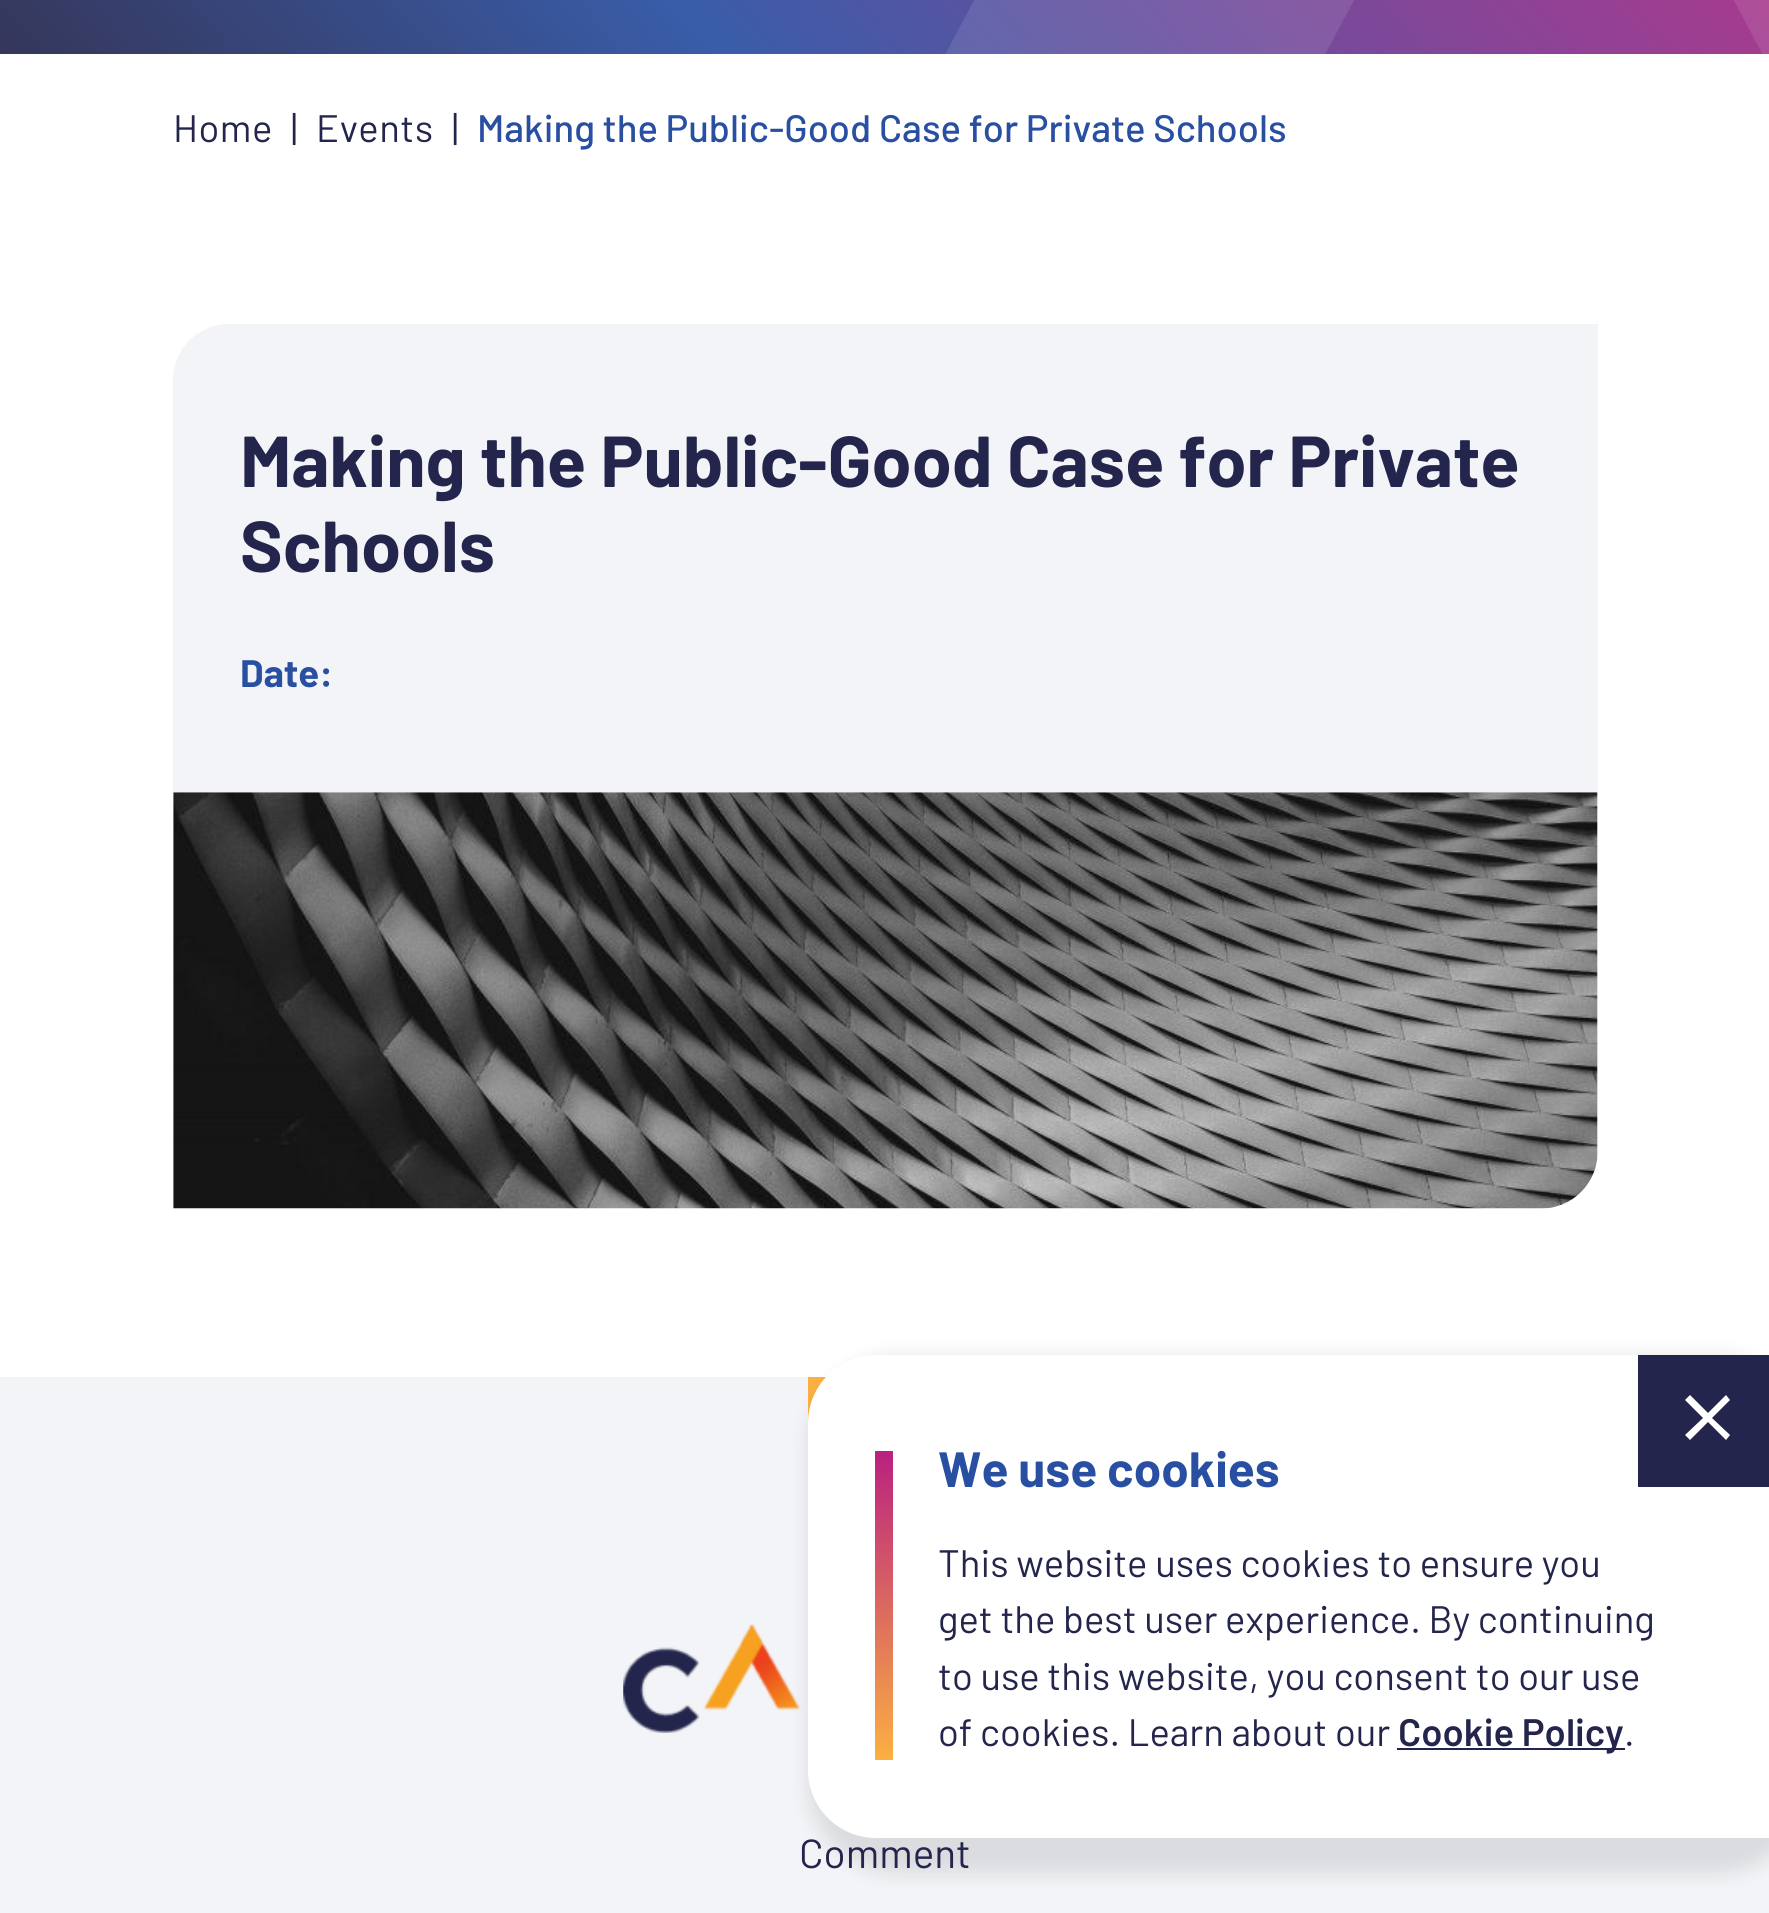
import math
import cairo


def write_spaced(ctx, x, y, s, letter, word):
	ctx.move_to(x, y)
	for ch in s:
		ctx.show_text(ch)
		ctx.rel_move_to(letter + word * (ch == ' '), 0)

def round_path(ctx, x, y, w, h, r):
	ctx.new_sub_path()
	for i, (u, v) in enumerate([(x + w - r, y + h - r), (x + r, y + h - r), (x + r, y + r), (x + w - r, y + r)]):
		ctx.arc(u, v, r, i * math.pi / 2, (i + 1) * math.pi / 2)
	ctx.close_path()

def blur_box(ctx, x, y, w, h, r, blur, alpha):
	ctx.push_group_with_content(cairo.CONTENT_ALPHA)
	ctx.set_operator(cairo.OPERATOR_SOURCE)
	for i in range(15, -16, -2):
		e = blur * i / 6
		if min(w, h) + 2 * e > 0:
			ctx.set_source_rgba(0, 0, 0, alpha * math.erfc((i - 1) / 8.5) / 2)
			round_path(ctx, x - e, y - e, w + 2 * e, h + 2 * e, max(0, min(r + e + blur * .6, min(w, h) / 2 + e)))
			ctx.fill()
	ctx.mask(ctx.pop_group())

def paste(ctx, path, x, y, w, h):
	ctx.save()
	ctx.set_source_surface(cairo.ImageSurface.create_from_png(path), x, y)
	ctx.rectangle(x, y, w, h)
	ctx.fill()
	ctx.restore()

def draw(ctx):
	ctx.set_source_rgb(1, 1, 1)
	ctx.paint()
	gradient = cairo.LinearGradient(298, 396, 1473, -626)
	gradient.add_color_stop_rgba(0, 0.208, 0.212, 0.353, 1)
	gradient.add_color_stop_rgba(0.35, 0.224, 0.365, 0.663, 1)
	gradient.add_color_stop_rgba(1, 0.753, 0.2, 0.537, 1)
	ctx.set_source(gradient)
	ctx.rectangle(0, 0, 1769, 54)
	ctx.fill()
	ctx.save()
	ctx.rectangle(707, 0, 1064, 54)
	ctx.clip()
	ctx.set_source_rgba(1, 1, 1, 0.1)
	ctx.new_path()
	ctx.move_to(1543, -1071)
	ctx.line_to(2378, 502)
	ctx.line_to(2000, 502)
	ctx.line_to(1355, -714)
	ctx.close_path()
	ctx.fill()
	ctx.new_path()
	ctx.move_to(1543, -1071)
	ctx.line_to(706, 505)
	ctx.line_to(1085, 505)
	ctx.line_to(1734, -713)
	ctx.close_path()
	ctx.fill()
	ctx.restore()
	ctx.select_font_face('Barlow')
	ctx.set_font_size(38.25)
	ctx.set_source_rgb(0.137, 0.145, 0.298)
	write_spaced(ctx, 173, 142, 'Home', 0.5, 0)
	ctx.move_to(291, 142)
	ctx.show_text('|')
	write_spaced(ctx, 316, 142, 'Events', 0.5, 0)
	ctx.move_to(452, 142)
	ctx.show_text('|')
	ctx.select_font_face('Barlow Medium')
	ctx.set_source_rgb(0.157, 0.31, 0.635)
	ctx.move_to(477, 142)
	ctx.show_text('Making the Public-Good Case for Private Schools')
	ctx.set_source_rgb(0.953, 0.957, 0.965)
	ctx.new_path()
	ctx.move_to(229, 324)
	ctx.line_to(1598, 324)
	ctx.line_to(1598, 1152)
	ctx.curve_to(1598, 1183, 1573, 1208, 1542, 1208)
	ctx.line_to(173, 1208)
	ctx.line_to(173, 380)
	ctx.curve_to(173, 349, 198, 324, 229, 324)
	ctx.close_path()
	ctx.fill()
	ctx.select_font_face('Barlow', cairo.FONT_SLANT_NORMAL, cairo.FONT_WEIGHT_BOLD)
	ctx.set_font_size(72)
	ctx.set_source_rgb(0.137, 0.145, 0.298)
	ctx.move_to(240, 487)
	ctx.show_text('Making the Public-Good Case for Private')
	ctx.move_to(240, 572)
	ctx.show_text('Schools')
	ctx.set_font_size(38.25)
	ctx.set_source_rgb(0.157, 0.31, 0.635)
	ctx.move_to(240, 687)
	ctx.show_text('Date:')
	paste(ctx, 'media/1.png', 173, 792, 1425, 417)
	ctx.set_source_rgb(0.953, 0.957, 0.965)
	ctx.rectangle(0, 1377, 1769, 536)
	ctx.fill()
	ctx.set_source_rgb(0.984, 0.69, 0.259)
	ctx.rectangle(808, 1377, 18, 46)
	ctx.fill()
	paste(ctx, 'media/2.png', 623, 1624, 178, 109)
	ctx.set_source_rgb(0, 0, 0)
	blur_box(ctx, 808, 1355, 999, 519, 86, 9, 0.1)
	ctx.set_source_rgb(1, 1, 1)
	ctx.new_path()
	ctx.move_to(876, 1355)
	ctx.line_to(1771, 1355)
	ctx.line_to(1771, 1838)
	ctx.line_to(876, 1838)
	ctx.curve_to(838.5, 1838, 808, 1807.5, 808, 1770)
	ctx.line_to(808, 1423)
	ctx.curve_to(808, 1385.5, 838.5, 1355, 876, 1355)
	ctx.close_path()
	ctx.fill()
	ctx.set_source_rgb(0.137, 0.145, 0.298)
	ctx.rectangle(1638, 1355, 131, 132)
	ctx.fill()
	ctx.set_source_rgb(1, 1, 1)
	ctx.new_path()
	ctx.move_to(1730, 1400)
	ctx.line_to(1726, 1395)
	ctx.line_to(1708, 1413)
	ctx.line_to(1690, 1395)
	ctx.line_to(1685, 1400)
	ctx.line_to(1703, 1418)
	ctx.line_to(1685, 1435)
	ctx.line_to(1690, 1440)
	ctx.line_to(1708, 1422)
	ctx.line_to(1726, 1440)
	ctx.line_to(1730, 1435)
	ctx.line_to(1712, 1418)
	ctx.close_path()
	ctx.fill()
	gradient = cairo.LinearGradient(884, 1451, 884, 1760)
	gradient.add_color_stop_rgba(0, 0.729, 0.129, 0.498, 1)
	gradient.add_color_stop_rgba(1, 0.984, 0.69, 0.259, 1)
	ctx.set_source(gradient)
	ctx.rectangle(875, 1451, 18, 309)
	ctx.fill()
	ctx.set_font_size(49.5)
	ctx.set_source_rgb(0.157, 0.31, 0.635)
	ctx.move_to(938, 1487)
	ctx.show_text('We use cookies')
	ctx.select_font_face('Barlow')
	ctx.set_font_size(38.25)
	ctx.set_source_rgb(0.137, 0.145, 0.298)
	for x, y, s in [
		(938, 1577, 'This website uses cookies to ensure you'),
		(938, 1633, 'get the best user experience. By continuing'),
		(938, 1690, 'to use this website, you consent to our use'),
		(938, 1746, 'of cookies. Learn about our'),
	]:
		ctx.move_to(x, y)
		ctx.show_text(s)
	ctx.rectangle(1397, 1748, 228, 2)
	ctx.fill()
	ctx.select_font_face('Barlow SemiBold')
	ctx.move_to(1398, 1746)
	ctx.show_text('Cookie Policy')
	ctx.select_font_face('Barlow')
	ctx.move_to(1624, 1746)
	ctx.show_text('.')
	ctx.set_font_size(40.5)
	ctx.move_to(799, 1868)
	ctx.show_text('Comment')


surface = cairo.ImageSurface(cairo.FORMAT_RGB24, 1769, 1913)
ctx = cairo.Context(surface)
options = cairo.FontOptions()
options.set_hint_metrics(cairo.HINT_METRICS_OFF)
options.set_hint_style(cairo.HINT_STYLE_NONE)
ctx.set_font_options(options)
ctx.set_miter_limit(4)
draw(ctx)
surface.write_to_png('image.png')
